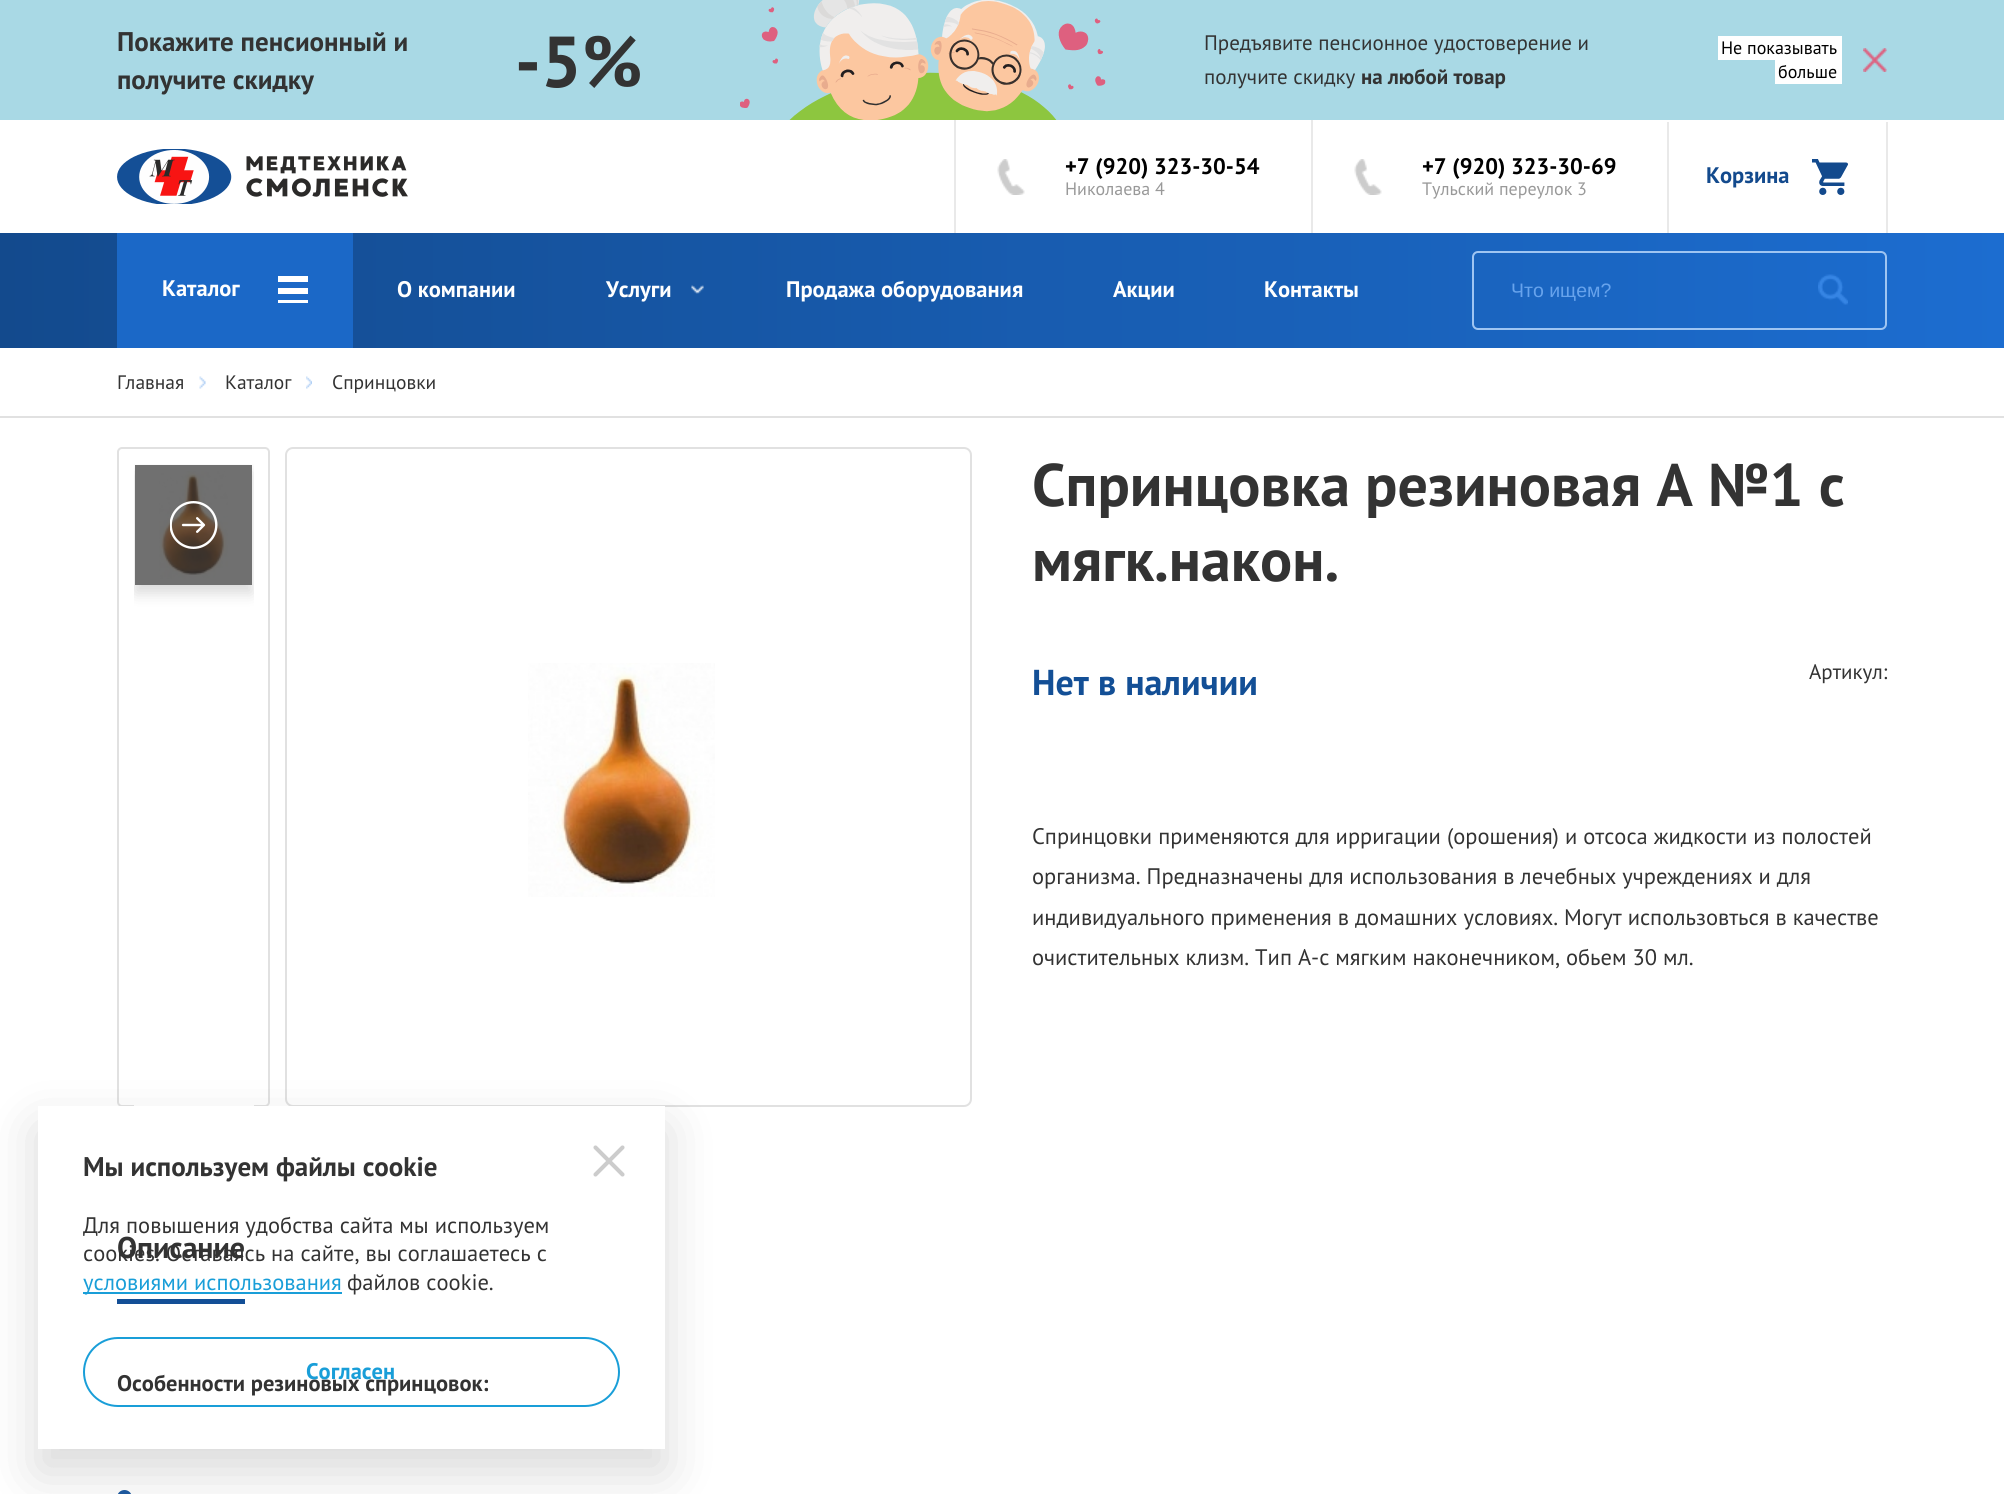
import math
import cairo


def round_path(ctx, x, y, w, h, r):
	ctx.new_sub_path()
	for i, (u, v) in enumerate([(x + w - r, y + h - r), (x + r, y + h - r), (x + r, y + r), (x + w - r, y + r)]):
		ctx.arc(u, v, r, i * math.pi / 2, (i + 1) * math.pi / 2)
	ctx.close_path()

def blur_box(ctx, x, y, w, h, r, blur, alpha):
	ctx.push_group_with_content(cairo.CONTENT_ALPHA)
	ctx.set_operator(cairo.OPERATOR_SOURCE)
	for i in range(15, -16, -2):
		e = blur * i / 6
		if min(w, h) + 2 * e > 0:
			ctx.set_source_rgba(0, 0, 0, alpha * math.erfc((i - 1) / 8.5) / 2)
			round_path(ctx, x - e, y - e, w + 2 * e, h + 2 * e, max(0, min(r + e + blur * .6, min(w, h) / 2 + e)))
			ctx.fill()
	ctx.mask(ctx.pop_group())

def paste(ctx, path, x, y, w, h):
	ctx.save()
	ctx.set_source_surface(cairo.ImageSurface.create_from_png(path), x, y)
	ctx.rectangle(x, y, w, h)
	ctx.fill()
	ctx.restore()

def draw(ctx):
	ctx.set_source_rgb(1, 1, 1)
	ctx.paint()
	ctx.set_source_rgb(0.439, 0.439, 0.439)
	ctx.rectangle(135, 465, 117, 120)
	ctx.fill()
	ctx.set_source_rgb(0.663, 0.851, 0.898)
	ctx.rectangle(0, 0, 2004, 120)
	ctx.fill()
	ctx.select_font_face('PT Sans', cairo.FONT_SLANT_NORMAL, cairo.FONT_WEIGHT_BOLD)
	ctx.set_font_size(27)
	ctx.set_source_rgb(0.2, 0.2, 0.2)
	ctx.move_to(117, 51)
	ctx.show_text('Покажите пенсионный и')
	ctx.move_to(117, 89)
	ctx.show_text('получите скидку')
	ctx.set_font_size(72)
	ctx.move_to(515, 87)
	ctx.show_text('-5%')
	paste(ctx, 'media/1.png', 740, 0, 366, 120)
	ctx.select_font_face('PT Sans')
	ctx.set_font_size(21)
	ctx.move_to(1204, 50)
	ctx.show_text('Предъявите пенсионное удостоверение и')
	ctx.move_to(1204, 84)
	ctx.show_text('получите скидку')
	ctx.select_font_face('PT Sans', cairo.FONT_SLANT_NORMAL, cairo.FONT_WEIGHT_BOLD)
	ctx.move_to(1361, 84)
	ctx.show_text('на любой товар')
	ctx.set_source_rgb(1, 1, 1)
	ctx.rectangle(1718, 36, 124, 24)
	ctx.fill()
	ctx.select_font_face('PT Sans')
	ctx.set_font_size(18)
	ctx.set_source_rgb(0, 0, 0)
	ctx.move_to(1721, 54)
	ctx.show_text('Не показывать')
	paste(ctx, 'media/2.png', 1863, 48, 24, 24)
	ctx.set_source_rgb(1, 1, 1)
	ctx.rectangle(1775, 60, 67, 24)
	ctx.fill()
	ctx.set_source_rgb(0, 0, 0)
	ctx.move_to(1778, 78)
	ctx.show_text('больше')
	paste(ctx, 'media/3.png', 117, 149, 291, 55)
	ctx.set_source_rgb(0.914, 0.914, 0.914)
	ctx.rectangle(954, 120, 2, 113)
	ctx.fill()
	paste(ctx, 'media/4.png', 997, 159, 28, 36)
	ctx.select_font_face('PT Sans', cairo.FONT_SLANT_NORMAL, cairo.FONT_WEIGHT_BOLD)
	ctx.set_font_size(22.5)
	ctx.set_source_rgb(0, 0, 0)
	ctx.move_to(1065, 174)
	ctx.show_text('+7 (920) 323-30-54')
	ctx.select_font_face('PT Sans')
	ctx.set_font_size(18)
	ctx.set_source_rgb(0.6, 0.6, 0.6)
	ctx.move_to(1065, 195)
	ctx.show_text('Николаева 4')
	ctx.set_source_rgb(0.914, 0.914, 0.914)
	ctx.rectangle(1311, 120, 2, 113)
	ctx.fill()
	paste(ctx, 'media/5.png', 1354, 159, 28, 36)
	ctx.select_font_face('PT Sans', cairo.FONT_SLANT_NORMAL, cairo.FONT_WEIGHT_BOLD)
	ctx.set_font_size(22.5)
	ctx.set_source_rgb(0, 0, 0)
	ctx.move_to(1422, 174)
	ctx.show_text('+7 (920) 323-30-69')
	ctx.select_font_face('PT Sans')
	ctx.set_font_size(18)
	ctx.set_source_rgb(0.6, 0.6, 0.6)
	ctx.move_to(1422, 195)
	ctx.show_text('Тульский переулок 3')
	ctx.set_source_rgb(0.914, 0.914, 0.914)
	ctx.rectangle(1886, 122, 2, 111)
	ctx.fill()
	ctx.rectangle(1667, 122, 2, 111)
	ctx.fill()
	ctx.select_font_face('PT Sans', cairo.FONT_SLANT_NORMAL, cairo.FONT_WEIGHT_BOLD)
	ctx.set_font_size(22.5)
	ctx.set_source_rgb(0.075, 0.29, 0.553)
	ctx.move_to(1706, 183)
	ctx.show_text('Корзина')
	paste(ctx, 'media/6.png', 1812, 159, 36, 36)
	gradient = cairo.LinearGradient(0, 290, 2004, 290)
	gradient.add_color_stop_rgba(0, 0.075, 0.29, 0.553, 1)
	gradient.add_color_stop_rgba(1, 0.11, 0.427, 0.816, 1)
	ctx.set_source(gradient)
	ctx.rectangle(0, 233, 2004, 115)
	ctx.fill()
	ctx.set_source_rgb(0.106, 0.408, 0.78)
	ctx.rectangle(117, 233, 236, 115)
	ctx.fill()
	ctx.set_source_rgb(1, 1, 1)
	ctx.move_to(162, 296)
	ctx.show_text('Каталог')
	ctx.rectangle(278, 276, 30, 6)
	ctx.rectangle(278, 288, 30, 6)
	ctx.rectangle(278, 300, 30, 3)
	ctx.fill()
	ctx.move_to(397, 297)
	ctx.show_text('О компании')
	ctx.move_to(606, 297)
	ctx.show_text('Услуги')
	paste(ctx, 'media/7.png', 691, 285, 13, 9)
	for x, y, s in [
		(786, 297, 'Продажа оборудования'),
		(1113, 297, 'Акции'),
		(1264, 297, 'Контакты'),
	]:
		ctx.move_to(x, y)
		ctx.show_text(s)
	round_path(ctx, 1473, 252, 413, 77, 5)
	ctx.set_source_rgb(0.624, 0.773, 0.949)
	ctx.stroke()
	paste(ctx, 'media/8.png', 1818, 274, 30, 31)
	ctx.select_font_face('Liberation Sans')
	ctx.set_font_size(19.5)
	ctx.set_source_rgb(0.404, 0.639, 0.922)
	ctx.move_to(1511, 297)
	ctx.show_text('Что ищем?')
	ctx.set_source_rgb(0.882, 0.882, 0.882)
	ctx.rectangle(0, 416, 2004, 2)
	ctx.fill()
	ctx.select_font_face('PT Sans')
	ctx.set_source_rgb(0.2, 0.2, 0.2)
	ctx.move_to(117, 389)
	ctx.show_text('Главная')
	paste(ctx, 'media/9.png', 199, 376, 7, 13)
	ctx.move_to(225, 389)
	ctx.show_text('Каталог')
	paste(ctx, 'media/10.png', 306, 376, 6, 13)
	ctx.move_to(332, 389)
	ctx.show_text('Спринцовки')
	round_path(ctx, 118, 448, 151, 658, 4)
	ctx.set_source_rgb(0.882, 0.882, 0.882)
	ctx.stroke()
	ctx.save()
	ctx.rectangle(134, 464, 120, 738)
	ctx.clip()
	ctx.set_fill_rule(cairo.FILL_RULE_EVEN_ODD)
	ctx.new_path()
	ctx.move_to(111, 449)
	ctx.line_to(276, 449)
	ctx.line_to(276, 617)
	ctx.line_to(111, 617)
	ctx.close_path()
	ctx.move_to(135, 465)
	ctx.line_to(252, 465)
	ctx.line_to(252, 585)
	ctx.line_to(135, 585)
	ctx.close_path()
	ctx.clip()
	ctx.set_source_rgb(0, 0, 0)
	blur_box(ctx, 135, 473, 117, 120, 0, 7.5, 0.15)
	ctx.restore()
	paste(ctx, 'media/11.png', 159, 471, 69, 108)
	paste(ctx, 'media/12.png', 170, 501, 48, 48)
	gradient = cairo.LinearGradient(194, 1106, 194, 1068)
	gradient.add_color_stop_rgba(0, 1, 1, 1, 1)
	gradient.add_color_stop_rgba(1, 1, 1, 1, 0)
	ctx.set_source(gradient)
	ctx.rectangle(134, 1105, 120, 1)
	ctx.fill()
	round_path(ctx, 286, 448, 685, 658, 7)
	ctx.set_source_rgb(0.882, 0.882, 0.882)
	ctx.stroke()
	paste(ctx, 'media/13.png', 528, 663, 187, 234)
	ctx.select_font_face('PT Sans', cairo.FONT_SLANT_NORMAL, cairo.FONT_WEIGHT_BOLD)
	ctx.set_font_size(60)
	ctx.set_source_rgb(0.2, 0.2, 0.2)
	ctx.move_to(1032, 506)
	ctx.show_text('Спринцовка резиновая А №1 с')
	ctx.move_to(1032, 581)
	ctx.show_text('мягк.након.')
	ctx.set_font_size(36)
	ctx.set_source_rgb(0.078, 0.31, 0.588)
	ctx.move_to(1032, 695)
	ctx.show_text('Нет в наличии')
	ctx.select_font_face('PT Sans')
	ctx.set_font_size(21)
	ctx.set_source_rgb(0.2, 0.2, 0.2)
	ctx.move_to(1809, 679)
	ctx.show_text('Артикул:')
	ctx.set_font_size(22.5)
	for x, y, s in [
		(1032, 844, 'Спринцовки применяются для ирригации (орошения) и отсоса жидкости из полостей'),
		(1032, 884, 'организма. Предназначены для использования в лечебных учреждениях и для'),
		(1032, 925, 'индивидуального применения в домашних условиях. Могут использовться в качестве'),
		(1032, 965, 'очистительных клизм. Тип А-с мягким наконечником, обьем 30 мл.'),
	]:
		ctx.move_to(x, y)
		ctx.show_text(s)
	ctx.set_source_rgb(0, 0, 0)
	blur_box(ctx, 38, 1128, 627, 344, 0, 26, 0.15)
	ctx.set_source_rgb(1, 1, 1)
	ctx.rectangle(38, 1106, 627, 343)
	ctx.fill()
	ctx.set_source_rgb(0.078, 0.31, 0.588)
	ctx.rectangle(117, 1299, 128, 5)
	ctx.fill()
	ctx.set_source_rgb(0.2, 0.2, 0.2)
	ctx.move_to(83, 1261)
	ctx.show_text('cookies. Оставаясь на сайте, вы соглашаетесь с')
	ctx.select_font_face('PT Sans', cairo.FONT_SLANT_NORMAL, cairo.FONT_WEIGHT_BOLD)
	ctx.set_font_size(30)
	ctx.move_to(117, 1258)
	ctx.show_text('Описание')
	round_path(ctx, 84, 1338, 535, 68, 34)
	ctx.set_source_rgb(0.098, 0.62, 0.847)
	ctx.stroke()
	ctx.set_font_size(22.5)
	ctx.set_source_rgb(0.2, 0.2, 0.2)
	ctx.move_to(117, 1391)
	ctx.show_text('Особенности резиновых спринцовок:')
	ctx.set_source_rgb(0.114, 0.345, 0.616)
	round_path(ctx, 117, 1490, 15, 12, 7.5)
	ctx.fill()
	ctx.set_font_size(27)
	ctx.set_source_rgb(0.2, 0.2, 0.2)
	ctx.move_to(83, 1176)
	ctx.show_text('Мы используем файлы cookie')
	ctx.select_font_face('PT Sans')
	ctx.set_font_size(22.5)
	ctx.move_to(83, 1233)
	ctx.show_text('Для повышения удобства сайта мы используем')
	ctx.set_source_rgb(0.098, 0.62, 0.847)
	ctx.rectangle(83, 1292, 259, 2)
	ctx.fill()
	ctx.move_to(83, 1290)
	ctx.show_text('условиями использования')
	ctx.set_source_rgb(0.2, 0.2, 0.2)
	ctx.move_to(347, 1290)
	ctx.show_text('файлов cookie.')
	ctx.select_font_face('PT Sans', cairo.FONT_SLANT_NORMAL, cairo.FONT_WEIGHT_BOLD)
	ctx.set_source_rgb(0.098, 0.62, 0.847)
	ctx.move_to(306, 1379)
	ctx.show_text('Согласен')
	ctx.new_path()
	ctx.move_to(622.5, 1147.5)
	ctx.line_to(595.5, 1174.5)
	ctx.move_to(595.5, 1147.5)
	ctx.line_to(622.5, 1174.5)
	ctx.set_source_rgb(0.8, 0.8, 0.8)
	ctx.set_line_width(4.1)
	ctx.set_line_cap(cairo.LINE_CAP_ROUND)
	ctx.set_line_join(cairo.LINE_JOIN_ROUND)
	ctx.stroke()


surface = cairo.ImageSurface(cairo.FORMAT_RGB24, 2004, 1494)
ctx = cairo.Context(surface)
options = cairo.FontOptions()
options.set_hint_metrics(cairo.HINT_METRICS_OFF)
options.set_hint_style(cairo.HINT_STYLE_NONE)
ctx.set_font_options(options)
ctx.set_miter_limit(4)
draw(ctx)
surface.write_to_png('image.png')
